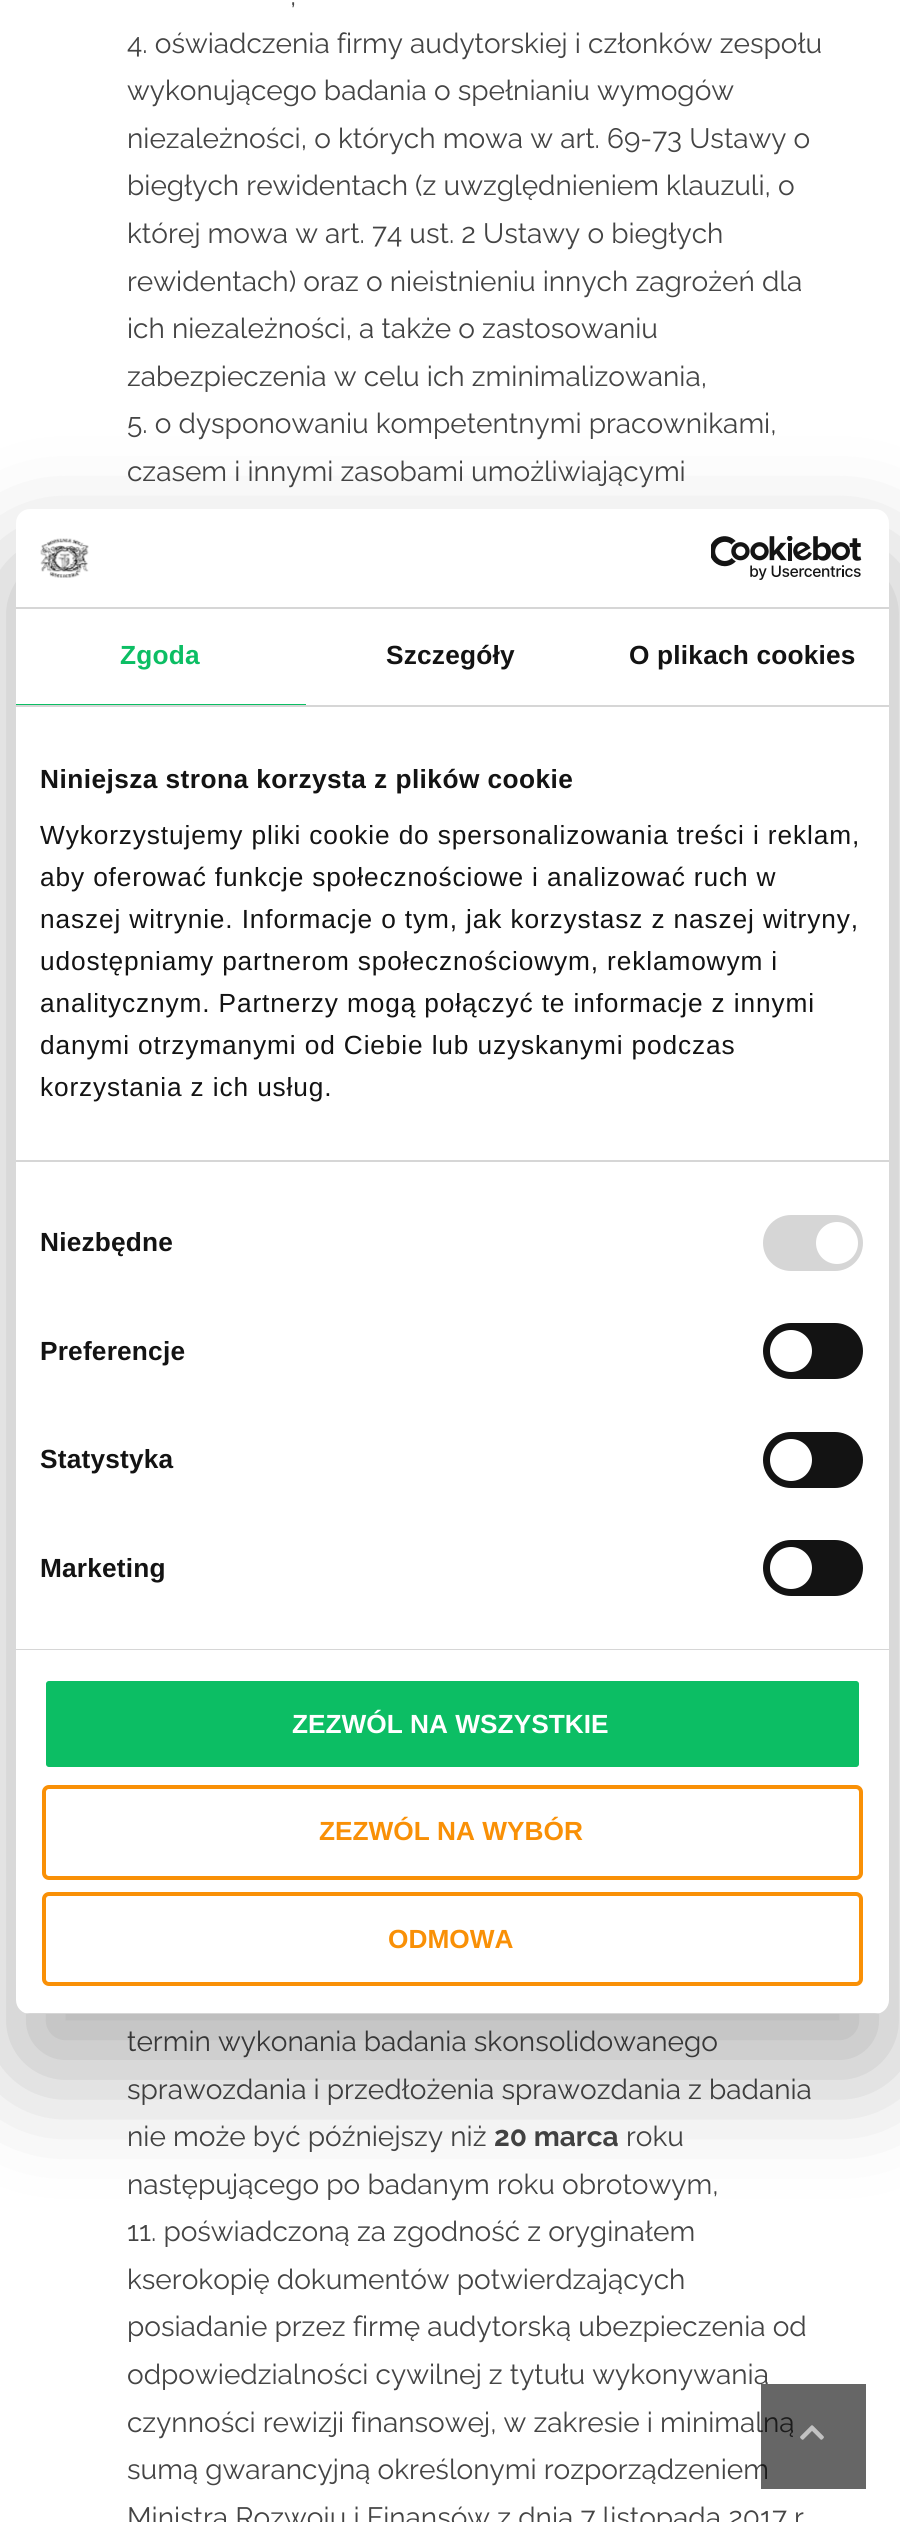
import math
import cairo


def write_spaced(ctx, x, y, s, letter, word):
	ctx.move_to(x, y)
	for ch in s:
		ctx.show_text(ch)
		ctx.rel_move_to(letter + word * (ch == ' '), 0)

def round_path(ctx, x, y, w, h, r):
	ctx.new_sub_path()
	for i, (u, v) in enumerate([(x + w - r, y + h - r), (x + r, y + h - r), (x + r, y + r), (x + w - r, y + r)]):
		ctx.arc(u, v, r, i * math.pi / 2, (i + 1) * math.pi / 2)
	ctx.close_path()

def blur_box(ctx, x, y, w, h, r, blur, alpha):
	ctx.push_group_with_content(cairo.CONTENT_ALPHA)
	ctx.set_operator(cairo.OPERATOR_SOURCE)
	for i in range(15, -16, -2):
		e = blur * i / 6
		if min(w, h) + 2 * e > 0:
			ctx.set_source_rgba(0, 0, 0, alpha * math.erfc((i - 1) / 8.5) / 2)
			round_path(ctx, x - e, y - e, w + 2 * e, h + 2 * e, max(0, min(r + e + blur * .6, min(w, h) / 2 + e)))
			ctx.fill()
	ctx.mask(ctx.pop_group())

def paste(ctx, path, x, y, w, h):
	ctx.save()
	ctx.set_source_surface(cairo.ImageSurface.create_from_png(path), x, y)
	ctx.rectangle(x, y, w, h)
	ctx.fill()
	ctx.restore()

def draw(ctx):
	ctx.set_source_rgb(1, 1, 1)
	ctx.paint()
	ctx.select_font_face('Raleway')
	ctx.set_font_size(28)
	ctx.set_source_rgb(0.267, 0.267, 0.267)
	for x, y, s in [
		(290, 5, ','),
		(127, 53, '4. oświadczenia firmy audytorskiej i członków zespołu'),
		(127, 100, 'wykonującego badania o spełnianiu wymogów'),
		(127, 148, 'niezależności, o których mowa w art. 69-73 Ustawy o'),
		(127, 195, 'biegłych rewidentach (z uwzględnieniem klauzuli, o'),
		(127, 243, 'której mowa w art. 74 ust. 2 Ustawy o biegłych'),
		(127, 291, 'rewidentach) oraz o nieistnieniu innych zagrożeń dla'),
		(127, 338, 'ich niezależności, a także o zastosowaniu'),
		(127, 386, 'zabezpieczenia w celu ich zminimalizowania,'),
		(127, 433, '5. o dysponowaniu kompetentnymi pracownikami,'),
		(127, 481, 'czasem i innymi zasobami umożliwiającymi'),
		(127, 2051, 'termin wykonania badania skonsolidowanego'),
		(127, 2099, 'sprawozdania i przedłożenia sprawozdania z badania'),
		(127, 2146, 'nie może być późniejszy niż'),
	]:
		ctx.move_to(x, y)
		ctx.show_text(s)
	ctx.select_font_face('Raleway', cairo.FONT_SLANT_NORMAL, cairo.FONT_WEIGHT_BOLD)
	ctx.move_to(494, 2146)
	ctx.show_text('20 marca')
	ctx.select_font_face('Raleway')
	for x, y, s in [
		(626, 2146, 'roku'),
		(127, 2194, 'następującego po badanym roku obrotowym,'),
		(127, 2241, '11. poświadczoną za zgodność z oryginałem'),
		(127, 2289, 'kserokopię dokumentów potwierdzających'),
		(127, 2336, 'posiadanie przez firmę audytorską ubezpieczenia od'),
		(127, 2384, 'odpowiedzialności cywilnej z tytułu wykonywania'),
		(127, 2432, 'czynności rewizji finansowej, w zakresie i minimalną'),
		(127, 2479, 'sumą gwarancyjną określonymi rozporządzeniem'),
		(127, 2527, 'Ministra Rozwoju i Finansów z dnia 7 listopada 2017 r'),
	]:
		ctx.move_to(x, y)
		ctx.show_text(s)
	ctx.set_source_rgba(0, 0, 0, 0.6)
	ctx.rectangle(761, 2384, 105, 105)
	ctx.fill()
	paste(ctx, 'media/1.png', 800, 2425, 24, 15)
	ctx.set_source_rgb(0, 0, 0)
	blur_box(ctx, 16, 565, 873, 1505, 14, 59.5, 0.3)
	ctx.set_source_rgb(1, 1, 1)
	round_path(ctx, 16, 509, 873, 1505, 14)
	ctx.fill()
	ctx.set_source_rgb(0.839, 0.839, 0.839)
	ctx.rectangle(16, 607, 873, 2)
	ctx.fill()
	paste(ctx, 'media/2.png', 40, 538, 49, 40)
	paste(ctx, 'media/3.png', 711, 536, 151, 44)
	ctx.rectangle(16, 705, 873, 2)
	ctx.fill()
	ctx.set_source_rgb(0.047, 0.745, 0.392)
	ctx.rectangle(16, 704, 290, 1)
	ctx.fill()
	ctx.select_font_face('Liberation Sans', cairo.FONT_SLANT_NORMAL, cairo.FONT_WEIGHT_BOLD)
	ctx.set_font_size(26.25)
	write_spaced(ctx, 120, 664, 'Zgoda', 0.2, 0)
	ctx.set_source_rgb(0.078, 0.078, 0.078)
	write_spaced(ctx, 386, 664, 'Szczegóły', 0.2, 0)
	write_spaced(ctx, 629, 664, 'O plikach cookies', 0.2, 0)
	ctx.set_source_rgb(0.839, 0.839, 0.839)
	ctx.rectangle(16, 1160, 873, 2)
	ctx.fill()
	ctx.set_source_rgb(0.078, 0.078, 0.078)
	write_spaced(ctx, 40, 788, 'Niniejsza strona korzysta z plików cookie', 0.45, 0)
	ctx.select_font_face('Liberation Sans')
	for x, y, s in [
		(40, 844, 'Wykorzystujemy pliki cookie do spersonalizowania treści i reklam,'),
		(40, 886, 'aby oferować funkcje społecznościowe i analizować ruch w'),
		(40, 928, 'naszej witrynie. Informacje o tym, jak korzystasz z naszej witryny,'),
		(40, 970, 'udostępniamy partnerom społecznościowym, reklamowym i'),
		(40, 1012, 'analitycznym. Partnerzy mogą połączyć te informacje z innymi'),
		(40, 1054, 'danymi otrzymanymi od Ciebie lub uzyskanymi podczas'),
		(40, 1096, 'korzystania z ich usług.'),
	]:
		write_spaced(ctx, x, y, s, 0.88, 0)
	ctx.set_source_rgb(0.839, 0.839, 0.839)
	ctx.rectangle(16, 1649, 873, 1)
	ctx.fill()
	ctx.select_font_face('Liberation Sans', cairo.FONT_SLANT_NORMAL, cairo.FONT_WEIGHT_BOLD)
	ctx.set_source_rgb(0.078, 0.078, 0.078)
	write_spaced(ctx, 40, 1251, 'Niezbędne', 0.2, 0)
	ctx.set_source_rgb(0.839, 0.839, 0.839)
	round_path(ctx, 763, 1215, 100, 56, 28)
	ctx.fill()
	ctx.set_source_rgb(1, 1, 1)
	ctx.arc(837, 1243, 21, 0, 2 * math.pi)
	ctx.fill()
	ctx.set_source_rgb(0.078, 0.078, 0.078)
	write_spaced(ctx, 40, 1360, 'Preferencje', 0.2, 0)
	round_path(ctx, 763, 1323, 100, 56, 28)
	ctx.fill()
	ctx.set_source_rgb(1, 1, 1)
	ctx.arc(791, 1351, 21, 0, 2 * math.pi)
	ctx.fill()
	ctx.set_source_rgb(0.078, 0.078, 0.078)
	write_spaced(ctx, 40, 1468, 'Statystyka', 0.2, 0)
	round_path(ctx, 763, 1432, 100, 56, 28)
	ctx.fill()
	ctx.set_source_rgb(1, 1, 1)
	ctx.arc(791, 1460, 21, 0, 2 * math.pi)
	ctx.fill()
	ctx.set_source_rgb(0.078, 0.078, 0.078)
	write_spaced(ctx, 40, 1577, 'Marketing', 0.2, 0)
	round_path(ctx, 763, 1540, 100, 56, 28)
	ctx.fill()
	ctx.set_source_rgb(1, 1, 1)
	ctx.arc(791, 1568, 21, 0, 2 * math.pi)
	ctx.fill()
	ctx.save()
	round_path(ctx, 16, 509, 873, 1505, 14)
	ctx.clip()
	ctx.set_source_rgb(0.839, 0.839, 0.839)
	ctx.rectangle(25, 2013, 855, 1)
	ctx.fill()
	ctx.restore()
	ctx.set_source_rgb(0.047, 0.745, 0.392)
	round_path(ctx, 44, 1679, 817, 90, 5)
	ctx.fill_preserve()
	ctx.set_source_rgb(1, 1, 1)
	ctx.set_line_width(4)
	ctx.stroke()
	ctx.move_to(292, 1733)
	ctx.show_text('ZEZWÓL NA WSZYSTKIE')
	round_path(ctx, 44, 1787, 817, 91, 5)
	ctx.set_source_rgb(0.973, 0.565, 0.027)
	ctx.stroke()
	ctx.move_to(319, 1840)
	ctx.show_text('ZEZWÓL NA WYBÓR')
	round_path(ctx, 44, 1894, 817, 90, 5)
	ctx.stroke()
	ctx.move_to(388, 1948)
	ctx.show_text('ODMOWA')


surface = cairo.ImageSurface(cairo.FORMAT_RGB24, 900, 2522)
ctx = cairo.Context(surface)
options = cairo.FontOptions()
options.set_hint_metrics(cairo.HINT_METRICS_OFF)
options.set_hint_style(cairo.HINT_STYLE_NONE)
ctx.set_font_options(options)
ctx.set_miter_limit(4)
draw(ctx)
surface.write_to_png('image.png')
